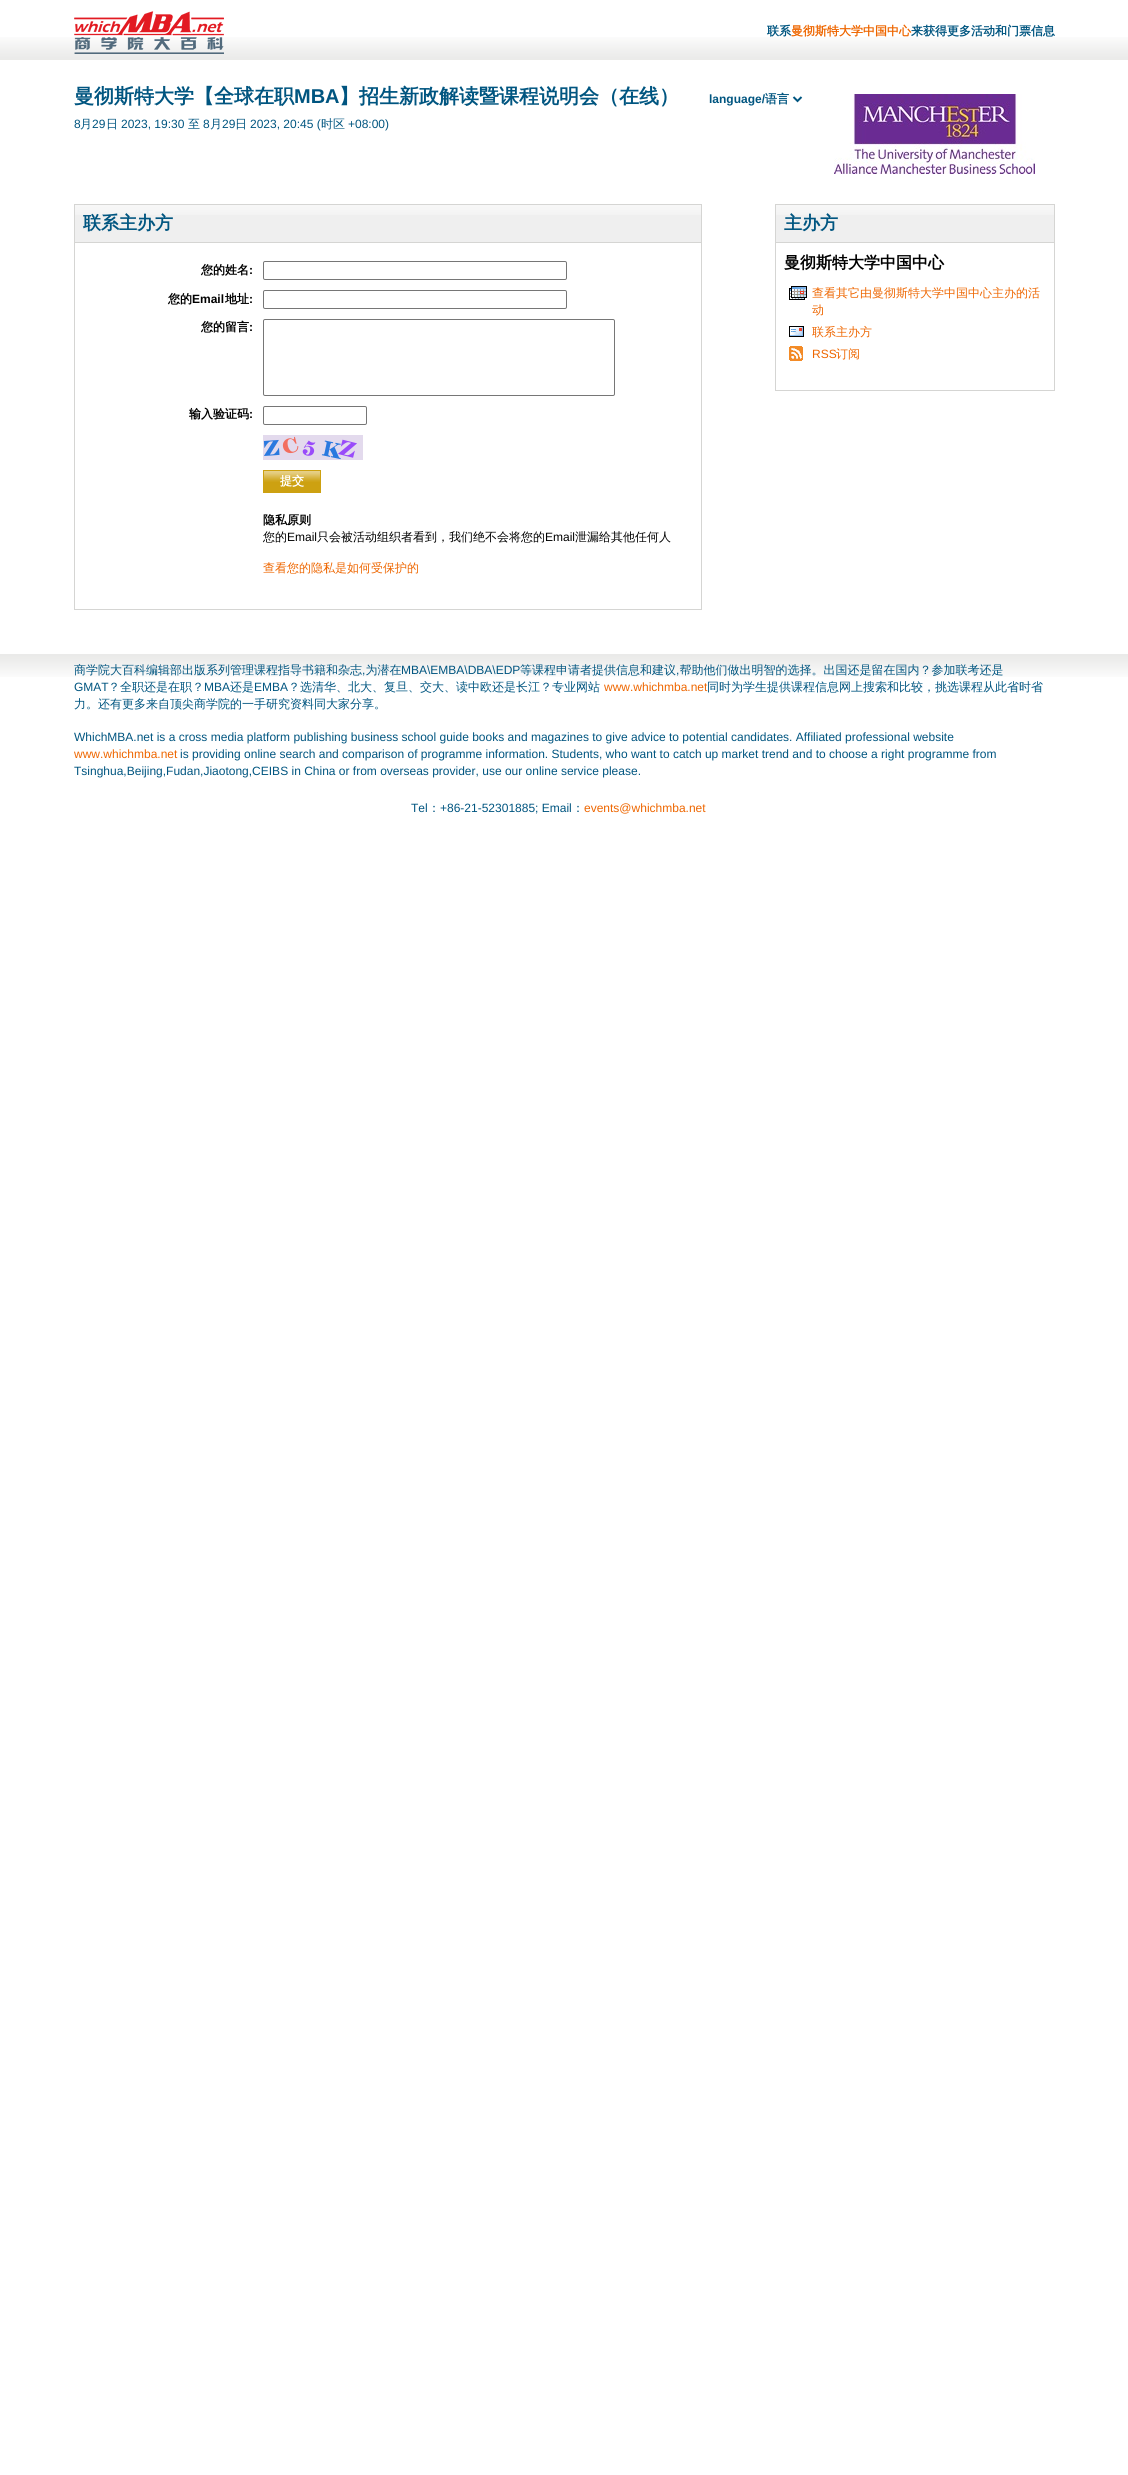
import math
import cairo


def round_path(ctx, x, y, w, h, r):
	ctx.new_sub_path()
	for i, (u, v) in enumerate([(x + w - r, y + h - r), (x + r, y + h - r), (x + r, y + r), (x + w - r, y + r)]):
		ctx.arc(u, v, r, i * math.pi / 2, (i + 1) * math.pi / 2)
	ctx.close_path()

def paste(ctx, path, x, y, w, h):
	ctx.save()
	ctx.set_source_surface(cairo.ImageSurface.create_from_png(path), x, y)
	ctx.rectangle(x, y, w, h)
	ctx.fill()
	ctx.restore()

def draw(ctx):
	ctx.set_source_rgb(1, 1, 1)
	ctx.paint()
	paste(ctx, 'media/1.png', 0, 37, 1128, 23)
	paste(ctx, 'media/2.png', 74, 11, 150, 43)
	ctx.select_font_face('WenQuanYi Zen Hei', cairo.FONT_SLANT_NORMAL, cairo.FONT_WEIGHT_BOLD)
	ctx.set_font_size(12)
	ctx.set_source_rgb(0, 0.333, 0.502)
	ctx.move_to(767, 35)
	ctx.show_text('联系')
	ctx.set_source_rgb(0.933, 0.4, 0)
	ctx.move_to(791, 35)
	ctx.show_text('曼彻斯特大学中国中心')
	ctx.set_source_rgb(0, 0.333, 0.502)
	ctx.move_to(911, 35)
	ctx.show_text('来获得更多活动和门票信息')
	ctx.set_font_size(20)
	ctx.move_to(74, 103)
	ctx.show_text('曼彻斯特大学【全球在职')
	ctx.select_font_face('Liberation Sans', cairo.FONT_SLANT_NORMAL, cairo.FONT_WEIGHT_BOLD)
	ctx.move_to(294, 103)
	ctx.show_text('MBA')
	ctx.select_font_face('WenQuanYi Zen Hei', cairo.FONT_SLANT_NORMAL, cairo.FONT_WEIGHT_BOLD)
	ctx.move_to(339, 103)
	ctx.show_text('】招生新政解读暨课程说明会（在线）')
	ctx.new_path()
	ctx.move_to(793.5, 97)
	ctx.line_to(797.5, 101)
	ctx.line_to(801.5, 97)
	ctx.stroke()
	ctx.select_font_face('Liberation Sans', cairo.FONT_SLANT_NORMAL, cairo.FONT_WEIGHT_BOLD)
	ctx.set_font_size(12)
	ctx.move_to(709, 103)
	ctx.show_text('language/')
	ctx.select_font_face('WenQuanYi Zen Hei', cairo.FONT_SLANT_NORMAL, cairo.FONT_WEIGHT_BOLD)
	ctx.move_to(765, 103)
	ctx.show_text('语言')
	ctx.select_font_face('Liberation Sans')
	ctx.move_to(74, 128)
	ctx.show_text('8')
	ctx.select_font_face('WenQuanYi Zen Hei Medium')
	ctx.move_to(80, 128)
	ctx.show_text('月')
	ctx.select_font_face('Liberation Sans')
	ctx.move_to(92, 128)
	ctx.show_text('29')
	ctx.select_font_face('WenQuanYi Zen Hei Medium')
	ctx.move_to(106, 128)
	ctx.show_text('日')
	ctx.select_font_face('Liberation Sans')
	ctx.move_to(121, 128)
	ctx.show_text('2023, 19:30')
	ctx.select_font_face('WenQuanYi Zen Hei Medium')
	ctx.move_to(188, 128)
	ctx.show_text('至')
	ctx.select_font_face('Liberation Sans')
	ctx.move_to(203, 128)
	ctx.show_text('8')
	ctx.select_font_face('WenQuanYi Zen Hei Medium')
	ctx.move_to(210, 128)
	ctx.show_text('月')
	ctx.select_font_face('Liberation Sans')
	ctx.move_to(222, 128)
	ctx.show_text('29')
	ctx.select_font_face('WenQuanYi Zen Hei Medium')
	ctx.move_to(235, 128)
	ctx.show_text('日')
	ctx.select_font_face('Liberation Sans')
	ctx.move_to(250, 128)
	ctx.show_text('2023, 20:45 (')
	ctx.select_font_face('WenQuanYi Zen Hei Medium')
	ctx.move_to(321, 128)
	ctx.show_text('时区')
	ctx.select_font_face('Liberation Sans')
	ctx.move_to(348, 128)
	ctx.show_text('+08:00)')
	paste(ctx, 'media/3.png', 834, 94, 201, 80)
	ctx.set_source_rgb(0.937, 0.937, 0.937)
	ctx.rectangle(75, 205, 626, 37)
	ctx.fill()
	paste(ctx, 'media/4.png', 75, 205, 626, 10)
	ctx.set_source_rgb(0.835, 0.835, 0.827)
	ctx.rectangle(74, 204, 628, 1)
	ctx.rectangle(701, 204, 1, 38)
	ctx.rectangle(74, 204, 1, 38)
	ctx.fill()
	ctx.select_font_face('WenQuanYi Zen Hei', cairo.FONT_SLANT_NORMAL, cairo.FONT_WEIGHT_BOLD)
	ctx.set_font_size(18)
	ctx.set_source_rgb(0, 0.333, 0.502)
	ctx.move_to(83, 229)
	ctx.show_text('联系主办方')
	ctx.rectangle(74.5, 242.5, 627, 367)
	ctx.set_source_rgb(0.835, 0.835, 0.827)
	ctx.set_line_width(1)
	ctx.stroke()
	ctx.set_font_size(12)
	ctx.set_source_rgb(0, 0, 0)
	ctx.move_to(201, 274)
	ctx.show_text('您的姓名')
	ctx.select_font_face('Liberation Sans', cairo.FONT_SLANT_NORMAL, cairo.FONT_WEIGHT_BOLD)
	ctx.move_to(249, 274)
	ctx.show_text(':')
	round_path(ctx, 263.5, 261.5, 303, 18, 1.5)
	ctx.set_source_rgb(0.463, 0.463, 0.463)
	ctx.stroke()
	ctx.select_font_face('WenQuanYi Zen Hei', cairo.FONT_SLANT_NORMAL, cairo.FONT_WEIGHT_BOLD)
	ctx.set_source_rgb(0, 0, 0)
	ctx.move_to(168, 303)
	ctx.show_text('您的')
	ctx.select_font_face('Liberation Sans', cairo.FONT_SLANT_NORMAL, cairo.FONT_WEIGHT_BOLD)
	ctx.move_to(192, 303)
	ctx.show_text('Email')
	ctx.select_font_face('WenQuanYi Zen Hei', cairo.FONT_SLANT_NORMAL, cairo.FONT_WEIGHT_BOLD)
	ctx.move_to(225, 303)
	ctx.show_text('地址')
	ctx.select_font_face('Liberation Sans', cairo.FONT_SLANT_NORMAL, cairo.FONT_WEIGHT_BOLD)
	ctx.move_to(249, 303)
	ctx.show_text(':')
	round_path(ctx, 263.5, 290.5, 303, 18, 1.5)
	ctx.set_source_rgb(0.463, 0.463, 0.463)
	ctx.stroke()
	ctx.select_font_face('WenQuanYi Zen Hei', cairo.FONT_SLANT_NORMAL, cairo.FONT_WEIGHT_BOLD)
	ctx.set_source_rgb(0, 0, 0)
	ctx.move_to(201, 331)
	ctx.show_text('您的留言')
	ctx.select_font_face('Liberation Sans', cairo.FONT_SLANT_NORMAL, cairo.FONT_WEIGHT_BOLD)
	ctx.move_to(249, 331)
	ctx.show_text(':')
	round_path(ctx, 263.5, 319.5, 351, 76, 1.5)
	ctx.set_source_rgb(0.463, 0.463, 0.463)
	ctx.stroke()
	ctx.select_font_face('WenQuanYi Zen Hei', cairo.FONT_SLANT_NORMAL, cairo.FONT_WEIGHT_BOLD)
	ctx.set_source_rgb(0, 0, 0)
	ctx.move_to(189, 418)
	ctx.show_text('输入验证码')
	ctx.select_font_face('Liberation Sans', cairo.FONT_SLANT_NORMAL, cairo.FONT_WEIGHT_BOLD)
	ctx.move_to(249, 418)
	ctx.show_text(':')
	round_path(ctx, 263.5, 406.5, 103, 18, 1.5)
	ctx.set_source_rgb(0.463, 0.463, 0.463)
	ctx.stroke()
	paste(ctx, 'media/5.png', 263, 435, 100, 25)
	ctx.rectangle(263.5, 470.5, 57, 22)
	ctx.set_source_rgb(0.804, 0.631, 0.067)
	ctx.stroke()
	ctx.rectangle(264, 471, 56, 21)
	ctx.fill()
	paste(ctx, 'media/6.png', 264, 471, 56, 11)
	ctx.select_font_face('WenQuanYi Zen Hei', cairo.FONT_SLANT_NORMAL, cairo.FONT_WEIGHT_BOLD)
	ctx.set_source_rgb(1, 1, 1)
	ctx.move_to(280, 485)
	ctx.show_text('提交')
	ctx.set_source_rgb(0, 0, 0)
	ctx.move_to(263, 524)
	ctx.show_text('隐私原则')
	ctx.select_font_face('WenQuanYi Zen Hei Medium')
	ctx.move_to(263, 541)
	ctx.show_text('您的')
	ctx.select_font_face('Liberation Sans')
	ctx.move_to(287, 541)
	ctx.show_text('Email')
	ctx.select_font_face('WenQuanYi Zen Hei Medium')
	ctx.move_to(317, 541)
	ctx.show_text('只会被活动组织者看到，我们绝不会将您的')
	ctx.select_font_face('Liberation Sans')
	ctx.move_to(545, 541)
	ctx.show_text('Email')
	ctx.select_font_face('WenQuanYi Zen Hei Medium')
	ctx.move_to(575, 541)
	ctx.show_text('泄漏给其他任何人')
	ctx.set_source_rgb(0.933, 0.4, 0)
	ctx.move_to(263, 572)
	ctx.show_text('查看您的隐私是如何受保护的')
	ctx.set_source_rgb(0.937, 0.937, 0.937)
	ctx.rectangle(776, 205, 278, 37)
	ctx.fill()
	paste(ctx, 'media/7.png', 776, 205, 278, 10)
	ctx.set_source_rgb(0.835, 0.835, 0.827)
	ctx.rectangle(775, 204, 280, 1)
	ctx.rectangle(1054, 204, 1, 38)
	ctx.rectangle(775, 204, 1, 38)
	ctx.fill()
	ctx.select_font_face('WenQuanYi Zen Hei', cairo.FONT_SLANT_NORMAL, cairo.FONT_WEIGHT_BOLD)
	ctx.set_font_size(18)
	ctx.set_source_rgb(0, 0.333, 0.502)
	ctx.move_to(784, 229)
	ctx.show_text('主办方')
	ctx.rectangle(775.5, 242.5, 279, 148)
	ctx.set_source_rgb(0.835, 0.835, 0.827)
	ctx.stroke()
	ctx.set_font_size(16)
	ctx.set_source_rgb(0, 0, 0)
	ctx.move_to(784, 268)
	ctx.show_text('曼彻斯特大学中国中心')
	paste(ctx, 'media/8.png', 789, 286, 18, 14)
	ctx.select_font_face('WenQuanYi Zen Hei Medium')
	ctx.set_font_size(12)
	ctx.set_source_rgb(0.933, 0.4, 0)
	ctx.move_to(812, 297)
	ctx.show_text('查看其它由曼彻斯特大学中国中心主办的活')
	ctx.move_to(812, 314)
	ctx.show_text('动')
	paste(ctx, 'media/9.png', 789, 326, 15, 11)
	ctx.move_to(812, 336)
	ctx.show_text('联系主办方')
	paste(ctx, 'media/10.png', 789, 346, 14, 15)
	ctx.select_font_face('Liberation Sans')
	ctx.move_to(812, 358)
	ctx.show_text('RSS')
	ctx.select_font_face('WenQuanYi Zen Hei Medium')
	ctx.move_to(836, 358)
	ctx.show_text('订阅')
	paste(ctx, 'media/11.png', 0, 654, 1128, 23)
	ctx.set_source_rgb(0, 0.333, 0.502)
	ctx.move_to(74, 674)
	ctx.show_text('商学院大百科编辑部出版系列管理课程指导书籍和杂志 为潜在')
	ctx.select_font_face('Liberation Sans')
	ctx.move_to(401, 674)
	ctx.show_text('MBA\\EMBA\\DBA\\EDP')
	ctx.select_font_face('WenQuanYi Zen Hei Medium')
	ctx.move_to(520, 674)
	ctx.show_text('等课程申请者提供信息和建议 帮助他们做出明智的选择。出国还是留在国内？参加联考还是')
	ctx.select_font_face('Liberation Sans')
	for x, y, s in [
		(362, 674, ','),
		(676, 674, ','),
		(74, 691, 'GMAT'),
	]:
		ctx.move_to(x, y)
		ctx.show_text(s)
	ctx.select_font_face('WenQuanYi Zen Hei Medium')
	ctx.move_to(108, 691)
	ctx.show_text('？全职还是在职？')
	ctx.select_font_face('Liberation Sans')
	ctx.move_to(204, 691)
	ctx.show_text('MBA')
	ctx.select_font_face('WenQuanYi Zen Hei Medium')
	ctx.move_to(230, 691)
	ctx.show_text('还是')
	ctx.select_font_face('Liberation Sans')
	ctx.move_to(254, 691)
	ctx.show_text('EMBA')
	ctx.select_font_face('WenQuanYi Zen Hei Medium')
	ctx.move_to(288, 691)
	ctx.show_text('？选清华、北大、复旦、交大、读中欧还是长江？专业网站')
	ctx.select_font_face('Liberation Sans')
	ctx.set_source_rgb(0.933, 0.4, 0)
	ctx.move_to(604, 691)
	ctx.show_text('www.whichmba.net')
	ctx.select_font_face('WenQuanYi Zen Hei Medium')
	ctx.set_source_rgb(0, 0.333, 0.502)
	ctx.move_to(707, 691)
	ctx.show_text('同时为学生提供课程信息网上搜索和比较，挑选课程从此省时省')
	ctx.move_to(74, 708)
	ctx.show_text('力。还有更多来自顶尖商学院的一手研究资料同大家分享。')
	ctx.select_font_face('Liberation Sans')
	ctx.move_to(74, 741)
	ctx.show_text('WhichMBA.net is a cross media platform publishing business school guide books and magazines to give advice to potential candidates. Affiliated professional website')
	ctx.set_source_rgb(0.933, 0.4, 0)
	ctx.move_to(74, 758)
	ctx.show_text('www.whichmba.net')
	ctx.set_source_rgb(0, 0.333, 0.502)
	for x, y, s in [
		(180, 758, 'is providing online search and comparison of programme information. Students, who want to catch up market trend and to choose a right programme from'),
		(74, 775, 'Tsinghua,Beijing,Fudan,Jiaotong,CEIBS in China or from overseas provider, use our online service please.'),
		(411, 812, 'Tel'),
	]:
		ctx.move_to(x, y)
		ctx.show_text(s)
	ctx.select_font_face('WenQuanYi Zen Hei Medium')
	ctx.move_to(428, 812)
	ctx.show_text('：')
	ctx.select_font_face('Liberation Sans')
	ctx.move_to(440, 812)
	ctx.show_text('+86-21-52301885; Email')
	ctx.select_font_face('WenQuanYi Zen Hei Medium')
	ctx.move_to(572, 812)
	ctx.show_text('：')
	ctx.select_font_face('Liberation Sans')
	ctx.set_source_rgb(0.933, 0.4, 0)
	ctx.move_to(584, 812)
	ctx.show_text('events@whichmba.net')


surface = cairo.ImageSurface(cairo.FORMAT_RGB24, 1128, 2475)
ctx = cairo.Context(surface)
options = cairo.FontOptions()
options.set_hint_metrics(cairo.HINT_METRICS_OFF)
options.set_hint_style(cairo.HINT_STYLE_NONE)
ctx.set_font_options(options)
ctx.set_miter_limit(4)
draw(ctx)
surface.write_to_png('image.png')
